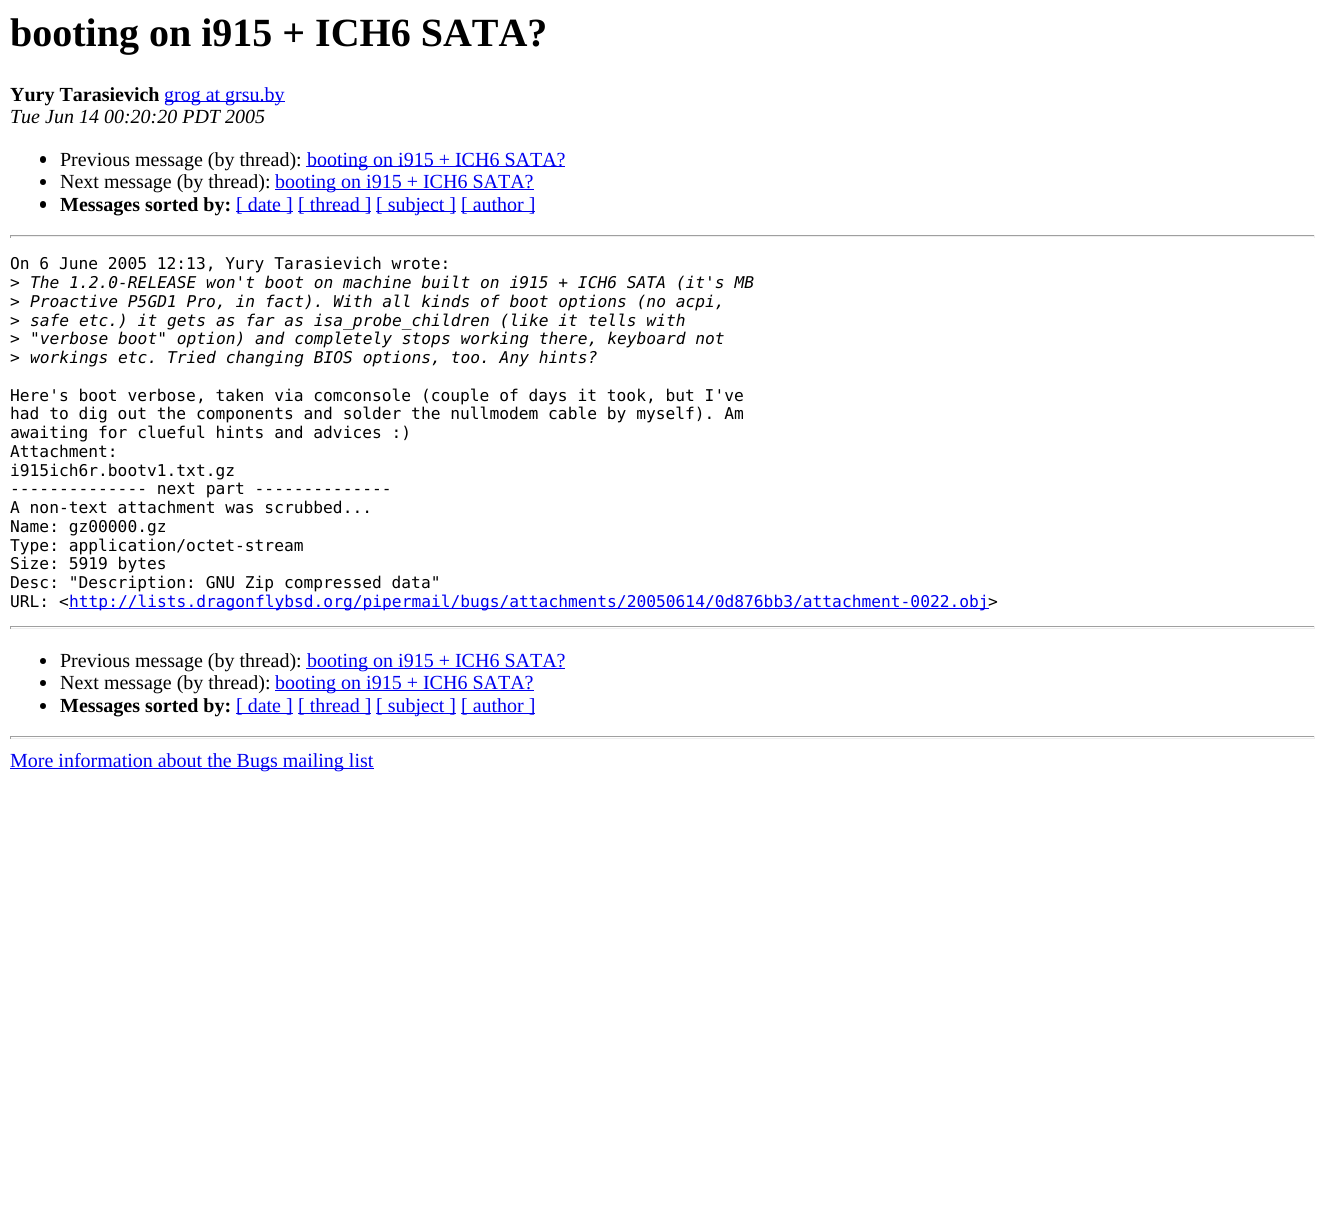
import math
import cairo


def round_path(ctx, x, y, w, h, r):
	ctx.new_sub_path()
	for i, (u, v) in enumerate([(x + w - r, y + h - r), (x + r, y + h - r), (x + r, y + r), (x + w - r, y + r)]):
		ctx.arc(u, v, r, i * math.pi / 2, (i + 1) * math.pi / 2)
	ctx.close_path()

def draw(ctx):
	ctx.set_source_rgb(1, 1, 1)
	ctx.paint()
	ctx.select_font_face('Liberation Serif', cairo.FONT_SLANT_NORMAL, cairo.FONT_WEIGHT_BOLD)
	ctx.set_font_size(40)
	ctx.set_source_rgb(0, 0, 0)
	ctx.move_to(10, 46)
	ctx.show_text('booting on i915 + ICH6 SATA?')
	ctx.set_font_size(20)
	ctx.move_to(10, 101)
	ctx.show_text('Yury Tarasievich')
	ctx.set_source_rgb(0, 0, 0.933)
	ctx.rectangle(165, 101, 120, 1)
	ctx.fill()
	ctx.select_font_face('Liberation Serif')
	ctx.move_to(164, 101)
	ctx.show_text('grog at grsu.by')
	ctx.select_font_face('Liberation Serif', cairo.FONT_SLANT_ITALIC)
	ctx.set_source_rgb(0, 0, 0)
	ctx.move_to(10, 123)
	ctx.show_text('Tue Jun 14 00:20:20 PDT 2005')
	round_path(ctx, 40, 156, 6, 7, 3)
	ctx.fill()
	ctx.select_font_face('Liberation Serif')
	ctx.move_to(60, 166)
	ctx.show_text('Previous message (by thread):')
	ctx.set_source_rgb(0, 0, 0.933)
	ctx.rectangle(306, 166, 259, 1)
	ctx.fill()
	ctx.move_to(307, 166)
	ctx.show_text('booting on i915 + ICH6 SATA?')
	ctx.set_source_rgb(0, 0, 0)
	ctx.new_path()
	ctx.arc(43, 182, 3, 0, 2 * math.pi)
	ctx.fill()
	ctx.move_to(60, 188)
	ctx.show_text('Next message (by thread):')
	ctx.set_source_rgb(0, 0, 0.933)
	ctx.rectangle(275, 189, 259, 1)
	ctx.fill()
	ctx.move_to(275, 188)
	ctx.show_text('booting on i915 + ICH6 SATA?')
	ctx.set_source_rgb(0, 0, 0)
	round_path(ctx, 40, 201, 6, 7, 3)
	ctx.fill()
	ctx.select_font_face('Liberation Serif', cairo.FONT_SLANT_NORMAL, cairo.FONT_WEIGHT_BOLD)
	ctx.move_to(60, 211)
	ctx.show_text('Messages sorted by:')
	ctx.set_source_rgb(0, 0, 0.933)
	ctx.rectangle(236, 211, 57, 1)
	ctx.fill()
	ctx.select_font_face('Liberation Serif')
	ctx.move_to(236, 211)
	ctx.show_text('[ date ]')
	ctx.rectangle(298, 211, 73, 1)
	ctx.fill()
	ctx.move_to(298, 211)
	ctx.show_text('[ thread ]')
	ctx.rectangle(376, 211, 80, 1)
	ctx.fill()
	ctx.move_to(376, 211)
	ctx.show_text('[ subject ]')
	ctx.rectangle(461, 211, 74, 1)
	ctx.fill()
	ctx.move_to(461, 211)
	ctx.show_text('[ author ]')
	ctx.set_source_rgb(0.624, 0.624, 0.624)
	ctx.rectangle(10, 235, 1305, 1)
	ctx.fill()
	ctx.set_source_rgb(0.933, 0.933, 0.933)
	ctx.rectangle(1314, 235, 1, 3)
	ctx.rectangle(10, 236, 1305, 1)
	ctx.fill()
	ctx.set_source_rgb(0.624, 0.624, 0.624)
	ctx.rectangle(10, 235, 1, 3)
	ctx.fill()
	ctx.select_font_face('DejaVu Sans Mono')
	ctx.set_font_size(16.25)
	ctx.set_source_rgb(0, 0, 0)
	ctx.move_to(10, 269)
	ctx.show_text('On 6 June 2005 12:13, Yury Tarasievich wrote:')
	ctx.move_to(10, 288)
	ctx.show_text('>')
	ctx.select_font_face('DejaVu Sans Mono', cairo.FONT_SLANT_ITALIC)
	ctx.move_to(30, 288)
	ctx.show_text('The 1.2.0-RELEASE won\'t boot on machine built on i915 + ICH6 SATA (it\'s MB')
	ctx.select_font_face('DejaVu Sans Mono')
	ctx.move_to(10, 307)
	ctx.show_text('>')
	ctx.select_font_face('DejaVu Sans Mono', cairo.FONT_SLANT_ITALIC)
	ctx.move_to(30, 307)
	ctx.show_text('Proactive P5GD1 Pro, in fact). With all kinds of boot options (no acpi,')
	ctx.select_font_face('DejaVu Sans Mono')
	ctx.move_to(10, 326)
	ctx.show_text('>')
	ctx.select_font_face('DejaVu Sans Mono', cairo.FONT_SLANT_ITALIC)
	ctx.move_to(30, 326)
	ctx.show_text('safe etc.) it gets as far as isa_probe_children (like it tells with')
	ctx.select_font_face('DejaVu Sans Mono')
	ctx.move_to(10, 344)
	ctx.show_text('>')
	ctx.select_font_face('DejaVu Sans Mono', cairo.FONT_SLANT_ITALIC)
	ctx.move_to(30, 344)
	ctx.show_text('"verbose boot" option) and completely stops working there, keyboard not')
	ctx.select_font_face('DejaVu Sans Mono')
	ctx.move_to(10, 363)
	ctx.show_text('>')
	ctx.select_font_face('DejaVu Sans Mono', cairo.FONT_SLANT_ITALIC)
	ctx.move_to(30, 363)
	ctx.show_text('workings etc. Tried changing BIOS options, too. Any hints?')
	ctx.select_font_face('DejaVu Sans Mono')
	for x, y, s in [
		(10, 401, 'Here\'s boot verbose, taken via comconsole (couple of days it took, but I\'ve'),
		(10, 419, 'had to dig out the components and solder the nullmodem cable by myself). Am'),
		(10, 438, 'awaiting for clueful hints and advices :)'),
		(10, 457, 'Attachment:'),
		(10, 476, 'i915ich6r.bootv1.txt.gz'),
		(10, 494, '-------------- next part --------------'),
		(10, 513, 'A non-text attachment was scrubbed...'),
		(10, 532, 'Name: gz00000.gz'),
		(10, 551, 'Type: application/octet-stream'),
		(10, 569, 'Size: 5919 bytes'),
		(10, 588, 'Desc: "Description: GNU Zip compressed data"'),
		(10, 607, 'URL: <'),
	]:
		ctx.move_to(x, y)
		ctx.show_text(s)
	ctx.set_source_rgb(0, 0, 0.933)
	ctx.rectangle(69, 608, 920, 1)
	ctx.fill()
	ctx.move_to(69, 607)
	ctx.show_text('http://lists.dragonflybsd.org/pipermail/bugs/attachments/20050614/0d876bb3/attachment-0022.obj')
	ctx.set_source_rgb(0, 0, 0)
	ctx.move_to(988, 607)
	ctx.show_text('>')
	ctx.set_source_rgb(0.624, 0.624, 0.624)
	ctx.rectangle(10, 626, 1305, 1)
	ctx.fill()
	ctx.set_source_rgb(0.933, 0.933, 0.933)
	ctx.rectangle(1314, 626, 1, 3)
	ctx.rectangle(10, 628, 1305, 1)
	ctx.fill()
	ctx.set_source_rgb(0.624, 0.624, 0.624)
	ctx.rectangle(10, 626, 1, 3)
	ctx.fill()
	ctx.set_source_rgb(0, 0, 0)
	ctx.arc(43, 661, 3, 0, 2 * math.pi)
	ctx.fill()
	ctx.select_font_face('Liberation Serif')
	ctx.set_font_size(20)
	ctx.move_to(60, 667)
	ctx.show_text('Previous message (by thread):')
	ctx.set_source_rgb(0, 0, 0.933)
	ctx.rectangle(306, 668, 259, 1)
	ctx.fill()
	ctx.move_to(307, 667)
	ctx.show_text('booting on i915 + ICH6 SATA?')
	ctx.set_source_rgb(0, 0, 0)
	ctx.new_path()
	ctx.arc(43, 683, 3, 0, 2 * math.pi)
	ctx.fill()
	ctx.move_to(60, 689)
	ctx.show_text('Next message (by thread):')
	ctx.set_source_rgb(0, 0, 0.933)
	ctx.rectangle(275, 690, 259, 1)
	ctx.fill()
	ctx.move_to(275, 689)
	ctx.show_text('booting on i915 + ICH6 SATA?')
	ctx.set_source_rgb(0, 0, 0)
	ctx.new_path()
	ctx.arc(43, 706, 3, 0, 2 * math.pi)
	ctx.fill()
	ctx.select_font_face('Liberation Serif', cairo.FONT_SLANT_NORMAL, cairo.FONT_WEIGHT_BOLD)
	ctx.move_to(60, 712)
	ctx.show_text('Messages sorted by:')
	ctx.set_source_rgb(0, 0, 0.933)
	ctx.rectangle(236, 713, 57, 1)
	ctx.fill()
	ctx.select_font_face('Liberation Serif')
	ctx.move_to(236, 712)
	ctx.show_text('[ date ]')
	ctx.rectangle(298, 713, 73, 1)
	ctx.fill()
	ctx.move_to(298, 712)
	ctx.show_text('[ thread ]')
	ctx.rectangle(376, 713, 80, 1)
	ctx.fill()
	ctx.move_to(376, 712)
	ctx.show_text('[ subject ]')
	ctx.rectangle(461, 713, 74, 1)
	ctx.fill()
	ctx.move_to(461, 712)
	ctx.show_text('[ author ]')
	ctx.set_source_rgb(0.624, 0.624, 0.624)
	ctx.rectangle(10, 736, 1305, 1)
	ctx.fill()
	ctx.set_source_rgb(0.933, 0.933, 0.933)
	ctx.rectangle(1314, 736, 1, 3)
	ctx.rectangle(10, 738, 1305, 1)
	ctx.fill()
	ctx.set_source_rgb(0.624, 0.624, 0.624)
	ctx.rectangle(10, 736, 1, 3)
	ctx.fill()
	ctx.set_source_rgb(0, 0, 0.933)
	ctx.rectangle(10, 768, 364, 1)
	ctx.fill()
	ctx.move_to(10, 767)
	ctx.show_text('More information about the Bugs mailing list')


surface = cairo.ImageSurface(cairo.FORMAT_RGB24, 1325, 1208)
ctx = cairo.Context(surface)
options = cairo.FontOptions()
options.set_hint_metrics(cairo.HINT_METRICS_OFF)
options.set_hint_style(cairo.HINT_STYLE_NONE)
ctx.set_font_options(options)
ctx.set_miter_limit(4)
draw(ctx)
surface.write_to_png('image.png')
